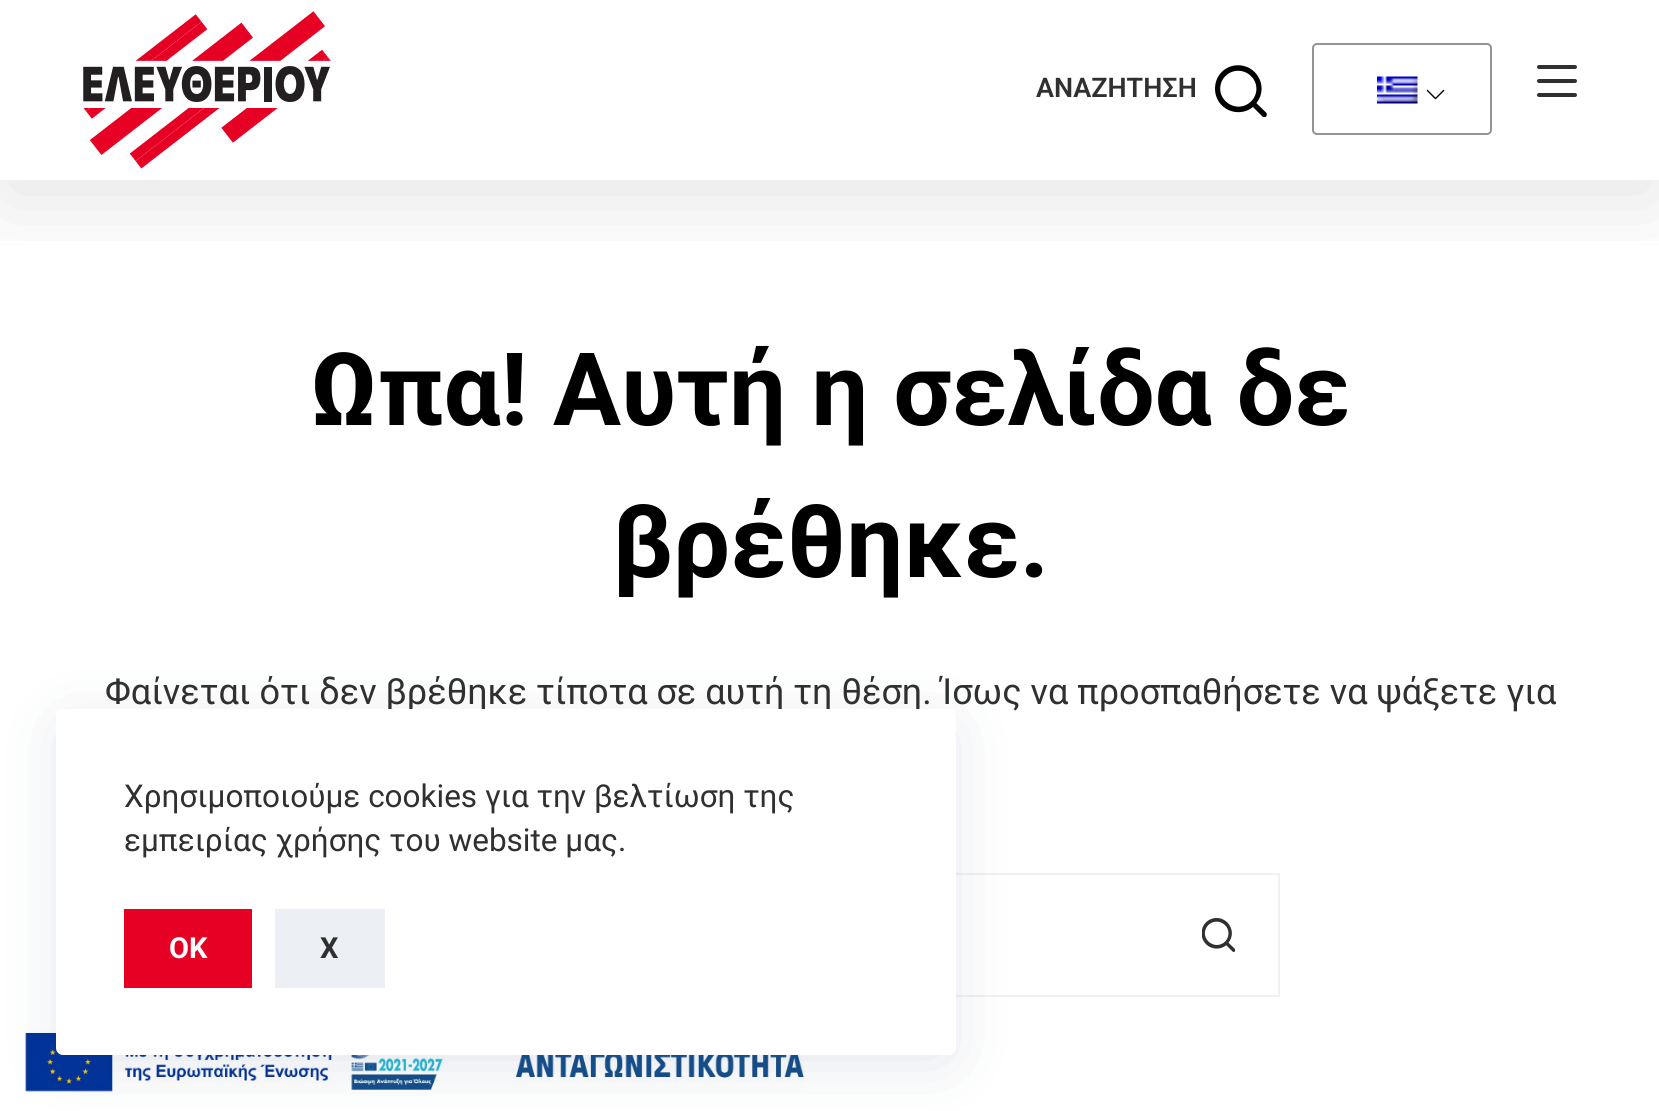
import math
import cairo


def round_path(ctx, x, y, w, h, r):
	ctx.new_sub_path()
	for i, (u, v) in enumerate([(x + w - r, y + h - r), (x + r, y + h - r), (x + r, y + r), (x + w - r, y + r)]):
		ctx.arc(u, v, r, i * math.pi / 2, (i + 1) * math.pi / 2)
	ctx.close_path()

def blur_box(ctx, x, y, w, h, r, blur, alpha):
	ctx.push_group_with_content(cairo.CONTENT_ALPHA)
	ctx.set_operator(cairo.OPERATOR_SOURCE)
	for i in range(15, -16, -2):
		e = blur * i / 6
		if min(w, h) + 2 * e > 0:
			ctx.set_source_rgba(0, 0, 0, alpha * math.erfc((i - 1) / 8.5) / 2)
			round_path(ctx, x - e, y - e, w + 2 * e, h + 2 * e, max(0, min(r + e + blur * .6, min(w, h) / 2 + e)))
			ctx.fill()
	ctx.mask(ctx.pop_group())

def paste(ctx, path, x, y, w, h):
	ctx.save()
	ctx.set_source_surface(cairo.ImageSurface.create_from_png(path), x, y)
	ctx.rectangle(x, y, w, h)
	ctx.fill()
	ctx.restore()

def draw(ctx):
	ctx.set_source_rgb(1, 1, 1)
	ctx.paint()
	ctx.save()
	ctx.rectangle(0, 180, 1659, 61)
	ctx.clip()
	ctx.set_source_rgb(0, 0, 0)
	blur_box(ctx, 0, 23, 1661, 180, 0, 45, 0.1)
	ctx.restore()
	paste(ctx, 'media/1.png', 83, 11, 248, 158)
	ctx.select_font_face('Roboto SemiBold')
	ctx.set_font_size(27)
	ctx.set_source_rgb(0.188, 0.188, 0.188)
	ctx.move_to(1036, 97)
	ctx.show_text('ΑΝΑΖΗΤΗΣΗ')
	paste(ctx, 'media/2.png', 1215, 65, 52, 52)
	paste(ctx, 'media/3.png', 1427, 89, 18, 11)
	round_path(ctx, 1313, 44, 178, 90, 4)
	ctx.set_source_rgb(0.58, 0.58, 0.58)
	ctx.stroke()
	paste(ctx, 'media/4.png', 1377, 76, 41, 28)
	ctx.set_source_rgb(0.188, 0.188, 0.188)
	round_path(ctx, 1537, 65, 40, 4, 2)
	ctx.fill()
	round_path(ctx, 1537, 79, 40, 4, 2)
	ctx.fill()
	round_path(ctx, 1537, 93, 40, 4, 2)
	ctx.fill()
	ctx.select_font_face('Roboto', cairo.FONT_SLANT_NORMAL, cairo.FONT_WEIGHT_BOLD)
	ctx.set_font_size(101.25)
	ctx.set_source_rgb(0, 0, 0)
	ctx.move_to(310, 425)
	ctx.show_text('Ωπα! Αυτή η σελίδα δε')
	ctx.move_to(612, 577)
	ctx.show_text('βρέθηκε.')
	ctx.select_font_face('Roboto')
	ctx.set_font_size(36)
	ctx.set_source_rgb(0.188, 0.188, 0.188)
	ctx.move_to(105, 704)
	ctx.show_text('Φαίνεται ότι δεν βρέθηκε τίποτα σε αυτή τη θέση. Ίσως να προσπαθήσετε να ψάξετε για')
	ctx.rectangle(381, 874, 898, 122)
	ctx.set_source_rgb(0.945, 0.945, 0.945)
	ctx.stroke()
	paste(ctx, 'media/5.png', 1202, 918, 33, 34)
	paste(ctx, 'media/6.png', 25, 1031, 779, 61)
	ctx.set_source_rgb(0.133, 0.22, 0.396)
	blur_box(ctx, 68, 731, 877, 324, 0, 34, 0.15)
	ctx.set_source_rgb(1, 1, 1)
	round_path(ctx, 56, 709, 900, 346, 7)
	ctx.fill()
	ctx.set_font_size(31.5)
	ctx.set_source_rgb(0.188, 0.188, 0.188)
	ctx.move_to(124, 807)
	ctx.show_text('Χρησιμοποιούμε cookies για την βελτίωση της')
	ctx.move_to(124, 851)
	ctx.show_text('εμπειρίας χρήσης του website μας.')
	ctx.set_source_rgb(0.902, 0, 0.137)
	ctx.rectangle(124, 909, 128, 79)
	ctx.fill()
	ctx.select_font_face('Roboto', cairo.FONT_SLANT_NORMAL, cairo.FONT_WEIGHT_BOLD)
	ctx.set_font_size(29)
	ctx.set_source_rgb(1, 1, 1)
	ctx.move_to(169, 958)
	ctx.show_text('OK')
	ctx.set_source_rgb(0.925, 0.937, 0.953)
	ctx.rectangle(275, 909, 110, 79)
	ctx.fill()
	ctx.set_source_rgb(0.188, 0.188, 0.188)
	ctx.move_to(320, 958)
	ctx.show_text('X')


surface = cairo.ImageSurface(cairo.FORMAT_RGB24, 1659, 1111)
ctx = cairo.Context(surface)
options = cairo.FontOptions()
options.set_hint_metrics(cairo.HINT_METRICS_OFF)
options.set_hint_style(cairo.HINT_STYLE_NONE)
ctx.set_font_options(options)
ctx.set_miter_limit(4)
draw(ctx)
surface.write_to_png('image.png')
